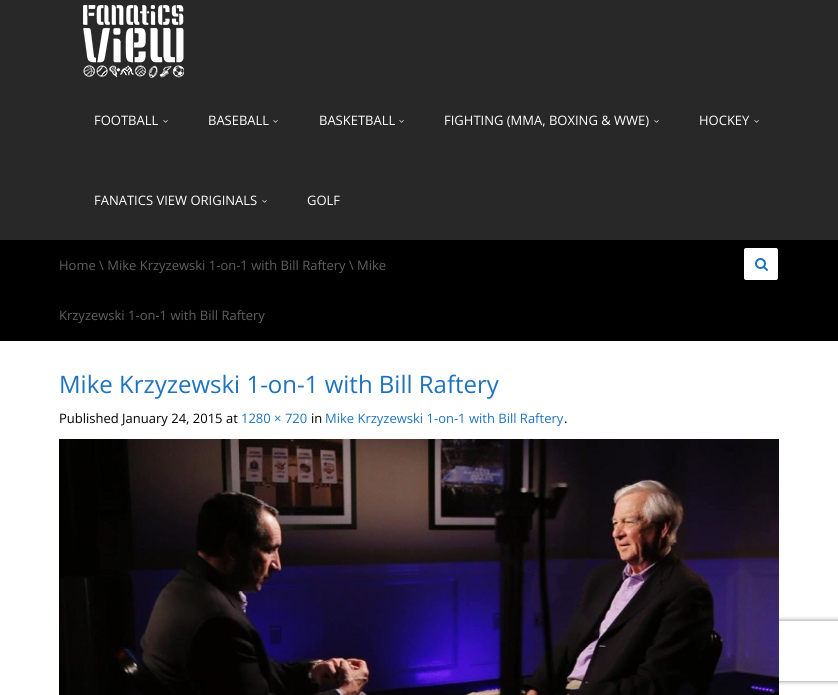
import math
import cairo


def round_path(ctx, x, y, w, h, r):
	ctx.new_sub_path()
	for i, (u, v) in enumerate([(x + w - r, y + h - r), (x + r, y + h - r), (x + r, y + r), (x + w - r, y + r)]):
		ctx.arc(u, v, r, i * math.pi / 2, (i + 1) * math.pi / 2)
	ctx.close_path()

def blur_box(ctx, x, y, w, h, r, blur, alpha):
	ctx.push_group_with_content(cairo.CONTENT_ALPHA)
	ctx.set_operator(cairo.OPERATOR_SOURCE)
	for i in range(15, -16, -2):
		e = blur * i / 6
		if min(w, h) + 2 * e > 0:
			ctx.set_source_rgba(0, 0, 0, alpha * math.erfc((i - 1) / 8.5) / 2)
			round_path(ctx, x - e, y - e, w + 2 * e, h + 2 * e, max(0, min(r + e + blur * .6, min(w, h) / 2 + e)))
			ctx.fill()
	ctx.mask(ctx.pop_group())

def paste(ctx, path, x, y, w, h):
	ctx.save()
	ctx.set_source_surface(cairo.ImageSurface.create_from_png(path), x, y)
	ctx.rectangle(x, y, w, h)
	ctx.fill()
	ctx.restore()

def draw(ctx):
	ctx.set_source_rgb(1, 1, 1)
	ctx.paint()
	ctx.set_source_rgb(0.157, 0.157, 0.157)
	ctx.rectangle(0, 0, 838, 240)
	ctx.fill()
	paste(ctx, 'media/1.png', 83, 5, 101, 73)
	ctx.select_font_face('Open Sans')
	ctx.set_font_size(13)
	ctx.set_source_rgb(1, 1, 1)
	ctx.move_to(94, 125)
	ctx.show_text('FOOTBALL')
	paste(ctx, 'media/2.png', 163, 120, 5, 3)
	ctx.move_to(208, 125)
	ctx.show_text('BASEBALL')
	paste(ctx, 'media/2.png', 273, 120, 5, 3)
	ctx.move_to(319, 125)
	ctx.show_text('BASKETBALL')
	paste(ctx, 'media/2.png', 399, 120, 5, 3)
	ctx.move_to(444, 125)
	ctx.show_text('FIGHTING (MMA, BOXING & WWE)')
	paste(ctx, 'media/2.png', 654, 120, 5, 3)
	ctx.move_to(699, 125)
	ctx.show_text('HOCKEY')
	paste(ctx, 'media/2.png', 754, 120, 5, 3)
	ctx.move_to(94, 205)
	ctx.show_text('FANATICS VIEW ORIGINALS')
	paste(ctx, 'media/2.png', 262, 200, 5, 3)
	ctx.move_to(307, 205)
	ctx.show_text('GOLF')
	ctx.set_source_rgb(0, 0, 0)
	ctx.rectangle(0, 240, 838, 101)
	ctx.fill()
	ctx.set_source_rgb(0.373, 0.373, 0.373)
	ctx.move_to(59, 270)
	ctx.show_text('Home \\ Mike Krzyzewski 1-on-1 with Bill Raftery \\ Mike')
	ctx.move_to(59, 320)
	ctx.show_text('Krzyzewski 1-on-1 with Bill Raftery')
	ctx.set_source_rgb(1, 1, 1)
	round_path(ctx, 744, 248, 34, 32, 2)
	ctx.fill()
	paste(ctx, 'media/3.png', 755, 258, 13, 13)
	ctx.set_font_size(24)
	ctx.set_source_rgb(0.118, 0.451, 0.745)
	ctx.move_to(59, 393)
	ctx.show_text('Mike Krzyzewski 1-on-1 with Bill Raftery')
	ctx.set_font_size(13)
	ctx.set_source_rgb(0, 0, 0)
	ctx.move_to(59, 423)
	ctx.show_text('Published January 24, 2015 at')
	ctx.set_source_rgb(0.118, 0.451, 0.745)
	ctx.move_to(241, 423)
	ctx.show_text('1280 × 720')
	ctx.set_source_rgb(0, 0, 0)
	ctx.move_to(311, 423)
	ctx.show_text('in')
	ctx.set_source_rgb(0.118, 0.451, 0.745)
	ctx.move_to(325, 423)
	ctx.show_text('Mike Krzyzewski 1-on-1 with Bill Raftery')
	ctx.set_source_rgb(0, 0, 0)
	ctx.move_to(564, 423)
	ctx.show_text('.')
	ctx.save()
	ctx.set_fill_rule(cairo.FILL_RULE_EVEN_ODD)
	ctx.new_path()
	ctx.move_to(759, 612)
	ctx.line_to(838, 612)
	ctx.line_to(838, 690)
	ctx.line_to(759, 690)
	ctx.close_path()
	ctx.move_to(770, 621)
	ctx.line_to(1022, 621)
	ctx.curve_to(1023, 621, 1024, 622, 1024, 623)
	ctx.line_to(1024, 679)
	ctx.curve_to(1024, 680, 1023, 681, 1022, 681)
	ctx.line_to(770, 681)
	ctx.curve_to(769, 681, 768, 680, 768, 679)
	ctx.line_to(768, 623)
	ctx.curve_to(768, 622, 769, 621, 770, 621)
	ctx.close_path()
	ctx.clip()
	ctx.set_source_rgb(0.502, 0.502, 0.502)
	blur_box(ctx, 768, 621, 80, 60, 2, 2.5, 1)
	ctx.restore()
	paste(ctx, 'media/4.png', 59, 439, 720, 256)


surface = cairo.ImageSurface(cairo.FORMAT_RGB24, 838, 695)
ctx = cairo.Context(surface)
options = cairo.FontOptions()
options.set_hint_metrics(cairo.HINT_METRICS_OFF)
options.set_hint_style(cairo.HINT_STYLE_NONE)
ctx.set_font_options(options)
ctx.set_miter_limit(4)
draw(ctx)
surface.write_to_png('image.png')
